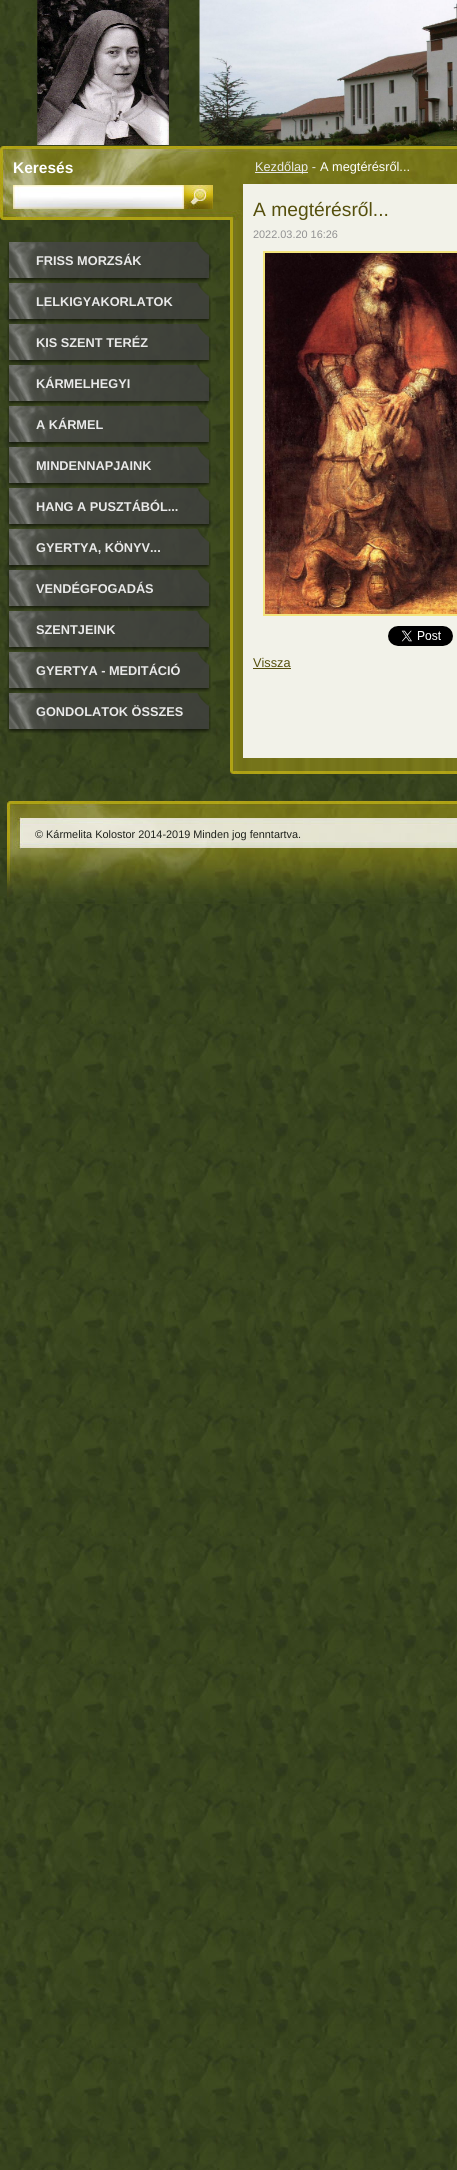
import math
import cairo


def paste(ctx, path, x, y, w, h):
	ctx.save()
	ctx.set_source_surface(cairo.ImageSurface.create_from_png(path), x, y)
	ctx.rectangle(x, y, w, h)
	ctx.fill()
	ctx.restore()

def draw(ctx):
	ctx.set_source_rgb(1, 1, 1)
	ctx.paint()
	paste(ctx, 'media/1.png', 0, 904, 457, 1266)
	paste(ctx, 'media/2.png', 0, 0, 457, 904)
	paste(ctx, 'media/3.png', 37, 0, 420, 145)
	paste(ctx, 'media/4.png', 0, 146, 230, 74)
	ctx.select_font_face('Liberation Sans', cairo.FONT_SLANT_NORMAL, cairo.FONT_WEIGHT_BOLD)
	ctx.set_font_size(15.5)
	ctx.set_source_rgb(1, 1, 1)
	ctx.move_to(13, 173)
	ctx.show_text('Keresés')
	paste(ctx, 'media/5.png', 13, 185, 171, 24)
	paste(ctx, 'media/6.png', 184, 185, 29, 24)
	paste(ctx, 'media/7.png', 230, 220, 227, 551)
	paste(ctx, 'media/8.png', 230, 146, 227, 74)
	ctx.set_source_rgb(0.914, 0.914, 0.914)
	ctx.rectangle(255, 172, 53, 1)
	ctx.fill()
	ctx.select_font_face('Liberation Sans')
	ctx.set_font_size(12.75)
	ctx.move_to(255, 171)
	ctx.show_text('Kezdőlap -')
	ctx.set_source_rgb(1, 1, 1)
	ctx.move_to(320, 171)
	ctx.show_text('A megtérésről...')
	ctx.set_source_rgb(0.949, 0.949, 0.914)
	ctx.rectangle(243, 184, 214, 574)
	ctx.fill()
	ctx.set_font_size(19.25)
	ctx.set_source_rgb(0.337, 0.314, 0.051)
	ctx.move_to(253, 216)
	ctx.show_text('A megtérésről...')
	ctx.set_font_size(10.9)
	ctx.set_source_rgb(0.569, 0.569, 0.573)
	ctx.move_to(253, 238)
	ctx.show_text('2022.03.20 16:26')
	ctx.rectangle(264, 252, 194, 363)
	ctx.set_source_rgb(0.953, 0.894, 0.486)
	ctx.stroke()
	paste(ctx, 'media/9.png', 265, 253, 192, 361)
	paste(ctx, 'media/10.png', 388, 626, 65, 20)
	ctx.set_font_size(12.75)
	ctx.set_source_rgb(0.337, 0.314, 0.051)
	ctx.move_to(253, 667)
	ctx.show_text('Vissza')
	ctx.rectangle(253, 668, 38, 1)
	ctx.fill()
	paste(ctx, 'media/11.png', 230, 771, 227, 3)
	paste(ctx, 'media/12.png', 7, 242, 204, 40)
	ctx.select_font_face('Liberation Sans', cairo.FONT_SLANT_NORMAL, cairo.FONT_WEIGHT_BOLD)
	ctx.set_source_rgb(0.914, 0.914, 0.914)
	ctx.move_to(36, 265)
	ctx.show_text('FRISS MORZSÁK')
	paste(ctx, 'media/13.png', 7, 283, 204, 40)
	ctx.move_to(36, 306)
	ctx.show_text('LELKIGYAKORLATOK')
	paste(ctx, 'media/14.png', 7, 324, 204, 40)
	ctx.move_to(36, 347)
	ctx.show_text('KIS SZENT TERÉZ')
	paste(ctx, 'media/15.png', 7, 365, 204, 40)
	ctx.move_to(36, 388)
	ctx.show_text('KÁRMELHEGYI')
	paste(ctx, 'media/16.png', 7, 406, 204, 40)
	ctx.move_to(36, 429)
	ctx.show_text('A KÁRMEL')
	paste(ctx, 'media/17.png', 7, 447, 204, 40)
	ctx.move_to(36, 470)
	ctx.show_text('MINDENNAPJAINK')
	paste(ctx, 'media/18.png', 7, 488, 204, 40)
	ctx.move_to(36, 511)
	ctx.show_text('HANG A PUSZTÁBÓL...')
	paste(ctx, 'media/19.png', 7, 529, 204, 40)
	ctx.move_to(36, 552)
	ctx.show_text('GYERTYA, KÖNYV...')
	paste(ctx, 'media/20.png', 7, 570, 204, 40)
	ctx.move_to(36, 593)
	ctx.show_text('VENDÉGFOGADÁS')
	paste(ctx, 'media/21.png', 7, 611, 204, 40)
	ctx.move_to(36, 634)
	ctx.show_text('SZENTJEINK')
	paste(ctx, 'media/22.png', 7, 652, 204, 40)
	ctx.move_to(36, 675)
	ctx.show_text('GYERTYA - MEDITÁCIÓ')
	paste(ctx, 'media/23.png', 7, 693, 204, 40)
	ctx.move_to(36, 716)
	ctx.show_text('GONDOLATOK ÖSSZES')
	paste(ctx, 'media/24.png', 7, 801, 450, 103)
	ctx.select_font_face('Liberation Sans')
	ctx.set_font_size(10.9)
	ctx.set_source_rgb(0.122, 0.133, 0.11)
	ctx.move_to(35, 838)
	ctx.show_text('© Kármelita Kolostor 2014-2019 Minden jog fenntartva.')


surface = cairo.ImageSurface(cairo.FORMAT_RGB24, 457, 2170)
ctx = cairo.Context(surface)
options = cairo.FontOptions()
options.set_hint_metrics(cairo.HINT_METRICS_OFF)
options.set_hint_style(cairo.HINT_STYLE_NONE)
ctx.set_font_options(options)
ctx.set_miter_limit(4)
draw(ctx)
surface.write_to_png('image.png')
